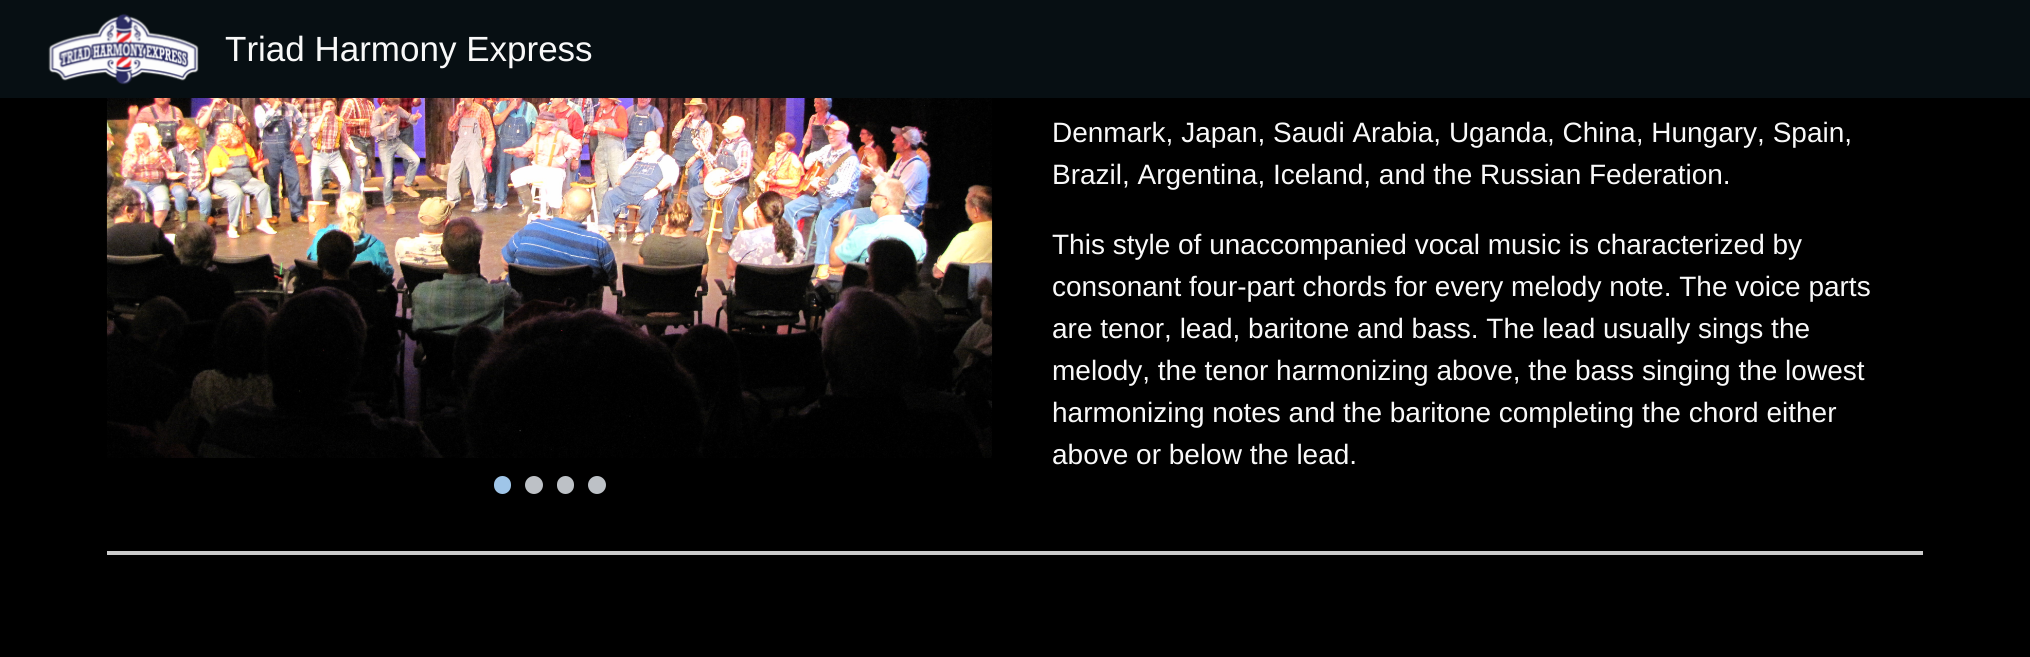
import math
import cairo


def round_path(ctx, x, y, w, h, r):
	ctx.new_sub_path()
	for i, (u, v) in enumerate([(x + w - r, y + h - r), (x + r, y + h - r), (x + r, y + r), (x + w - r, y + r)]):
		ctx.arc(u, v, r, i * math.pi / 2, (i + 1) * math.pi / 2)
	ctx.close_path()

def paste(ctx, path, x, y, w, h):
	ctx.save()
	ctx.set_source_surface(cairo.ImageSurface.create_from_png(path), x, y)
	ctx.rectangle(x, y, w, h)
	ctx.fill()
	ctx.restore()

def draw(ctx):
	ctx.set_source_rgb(0, 0, 0)
	ctx.paint()
	ctx.set_source_rgb(0.031, 0.059, 0.075)
	ctx.rectangle(0, 0, 2030, 98)
	ctx.fill()
	paste(ctx, 'media/1.png', 48, 13, 151, 72)
	ctx.select_font_face('Liberation Sans')
	ctx.set_font_size(35)
	ctx.set_source_rgb(0.976, 0.976, 0.976)
	ctx.move_to(225, 61)
	ctx.show_text('Triad Harmony Express')
	paste(ctx, 'media/2.png', 106, 98, 887, 360)
	ctx.set_source_rgb(0.624, 0.773, 0.91)
	round_path(ctx, 494, 476, 17, 18, 8.5)
	ctx.fill()
	ctx.set_source_rgb(0.741, 0.757, 0.776)
	ctx.arc(534, 485, 9, 0, 2 * math.pi)
	ctx.fill()
	round_path(ctx, 557, 476, 17, 18, 8.5)
	ctx.fill()
	ctx.arc(597, 485, 9, 0, 2 * math.pi)
	ctx.fill()
	ctx.set_font_size(28)
	ctx.set_source_rgb(0.976, 0.976, 0.976)
	for x, y, s in [
		(1052, 142, 'Denmark, Japan, Saudi Arabia, Uganda, China, Hungary, Spain,'),
		(1052, 184, 'Brazil, Argentina, Iceland, and the Russian Federation.'),
		(1052, 254, 'This style of unaccompanied vocal music is characterized by'),
		(1052, 296, 'consonant four-part chords for every melody note. The voice parts'),
		(1052, 338, 'are tenor, lead, baritone and bass. The lead usually sings the'),
		(1052, 380, 'melody, the tenor harmonizing above, the bass singing the lowest'),
		(1052, 422, 'harmonizing notes and the baritone completing the chord either'),
		(1052, 464, 'above or below the lead.'),
	]:
		ctx.move_to(x, y)
		ctx.show_text(s)
	ctx.set_source_rgb(0.8, 0.8, 0.8)
	ctx.rectangle(107, 551, 1816, 4)
	ctx.fill()


surface = cairo.ImageSurface(cairo.FORMAT_RGB24, 2030, 657)
ctx = cairo.Context(surface)
options = cairo.FontOptions()
options.set_hint_metrics(cairo.HINT_METRICS_OFF)
options.set_hint_style(cairo.HINT_STYLE_NONE)
ctx.set_font_options(options)
ctx.set_miter_limit(4)
draw(ctx)
surface.write_to_png('image.png')
